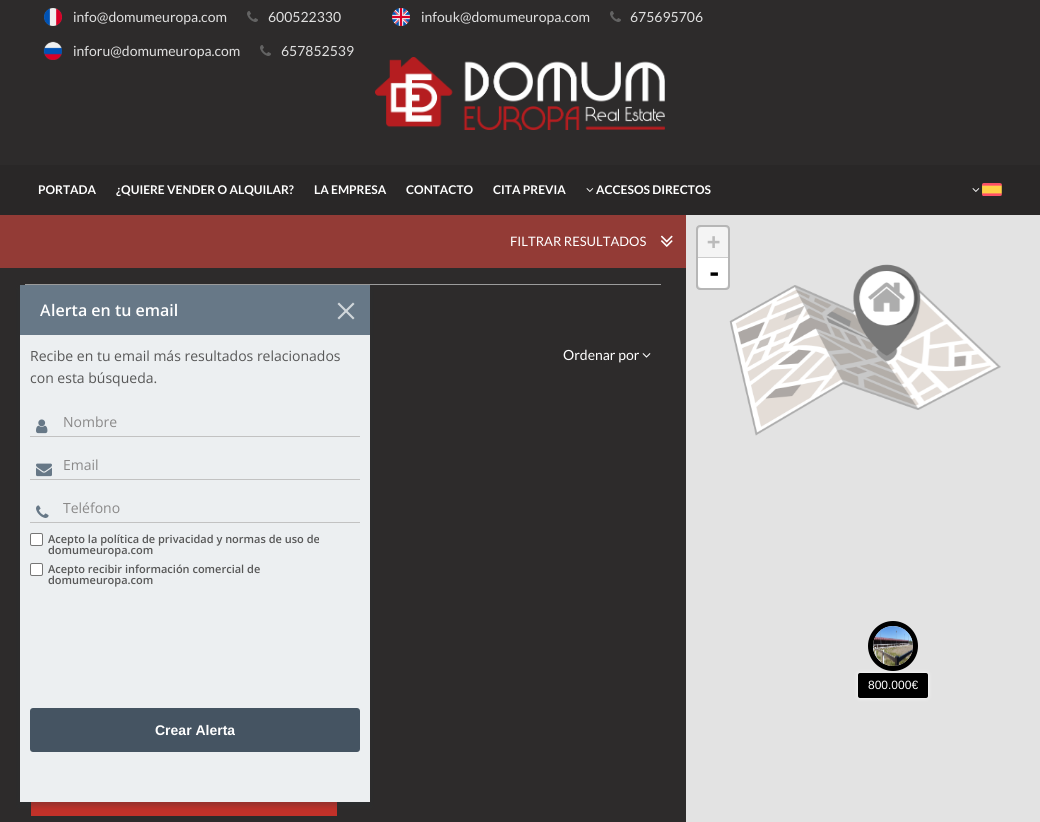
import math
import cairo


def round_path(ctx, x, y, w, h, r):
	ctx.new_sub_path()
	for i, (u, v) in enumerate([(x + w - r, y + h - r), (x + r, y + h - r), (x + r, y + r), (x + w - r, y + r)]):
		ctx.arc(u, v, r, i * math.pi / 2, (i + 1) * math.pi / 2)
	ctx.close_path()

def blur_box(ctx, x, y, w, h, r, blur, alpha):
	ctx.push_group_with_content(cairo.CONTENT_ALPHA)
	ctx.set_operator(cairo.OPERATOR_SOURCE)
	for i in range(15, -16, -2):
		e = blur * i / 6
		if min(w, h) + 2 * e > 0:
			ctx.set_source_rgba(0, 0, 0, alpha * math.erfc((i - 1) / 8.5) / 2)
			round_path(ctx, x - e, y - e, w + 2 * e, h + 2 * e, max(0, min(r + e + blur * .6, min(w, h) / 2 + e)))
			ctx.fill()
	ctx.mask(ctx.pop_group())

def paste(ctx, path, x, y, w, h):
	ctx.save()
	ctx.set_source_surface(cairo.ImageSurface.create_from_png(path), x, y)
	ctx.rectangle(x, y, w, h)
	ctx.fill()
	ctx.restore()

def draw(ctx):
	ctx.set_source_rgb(0.176, 0.169, 0.169)
	ctx.paint()
	paste(ctx, 'media/1.png', 44, 8, 18, 18)
	ctx.select_font_face('Lato')
	ctx.set_font_size(14)
	ctx.set_source_rgb(0.878, 0.878, 0.878)
	ctx.move_to(73, 22)
	ctx.show_text('info@domumeuropa.com')
	paste(ctx, 'media/2.png', 247, 11, 11, 11)
	ctx.move_to(268, 22)
	ctx.show_text('600522330')
	paste(ctx, 'media/3.png', 392, 8, 18, 18)
	ctx.move_to(421, 22)
	ctx.show_text('infouk@domumeuropa.com')
	paste(ctx, 'media/2.png', 610, 11, 11, 11)
	ctx.move_to(630, 22)
	ctx.show_text('675695706')
	paste(ctx, 'media/4.png', 43, 41, 19, 19)
	ctx.move_to(73, 56)
	ctx.show_text('inforu@domumeuropa.com')
	paste(ctx, 'media/2.png', 260, 45, 11, 11)
	ctx.move_to(281, 56)
	ctx.show_text('657852539')
	paste(ctx, 'media/5.png', 375, 57, 290, 73)
	ctx.set_source_rgb(0.161, 0.153, 0.153)
	ctx.rectangle(0, 165, 1040, 50)
	ctx.fill()
	ctx.select_font_face('Lato', cairo.FONT_SLANT_NORMAL, cairo.FONT_WEIGHT_BOLD)
	ctx.set_font_size(12)
	ctx.set_source_rgb(1, 1, 1)
	for x, y, s in [
		(38, 194, 'PORTADA'),
		(116, 194, '¿QUIERE VENDER O ALQUILAR?'),
		(314, 194, 'LA EMPRESA'),
		(406, 194, 'CONTACTO'),
		(493, 194, 'CITA PREVIA'),
	]:
		ctx.move_to(x, y)
		ctx.show_text(s)
	paste(ctx, 'media/6.png', 586, 188, 8, 4)
	ctx.move_to(596, 194)
	ctx.show_text('ACCESOS DIRECTOS')
	paste(ctx, 'media/6.png', 972, 188, 8, 4)
	paste(ctx, 'media/7.png', 982, 183, 20, 13)
	ctx.set_source_rgb(0.576, 0.231, 0.212)
	ctx.rectangle(0, 215, 686, 53)
	ctx.fill()
	ctx.select_font_face('Lato')
	ctx.set_font_size(13)
	ctx.set_source_rgb(1, 1, 1)
	ctx.move_to(510, 246)
	ctx.show_text('FILTRAR RESULTADOS')
	paste(ctx, 'media/8.png', 660, 235, 13, 12)
	ctx.set_source_rgb(0.765, 0.192, 0.161)
	ctx.rectangle(31, 802, 306, 14)
	ctx.fill()
	ctx.set_source_rgb(0.89, 0.89, 0.89)
	ctx.rectangle(686, 215, 354, 607)
	ctx.fill()
	paste(ctx, 'media/9.png', 729, 264, 272, 172)
	round_path(ctx, 697, 226, 32, 63, 3)
	ctx.set_source_rgb(0.714, 0.714, 0.714)
	ctx.stroke()
	ctx.set_source_rgb(0.957, 0.957, 0.957)
	ctx.new_path()
	ctx.move_to(702, 227)
	ctx.line_to(724, 227)
	ctx.curve_to(726, 227, 728, 229, 728, 231)
	ctx.line_to(728, 258)
	ctx.line_to(698, 258)
	ctx.line_to(698, 231)
	ctx.curve_to(698, 229, 700, 227, 702, 227)
	ctx.close_path()
	ctx.fill()
	ctx.set_source_rgb(0.8, 0.8, 0.8)
	ctx.rectangle(698, 257, 30, 1)
	ctx.fill()
	ctx.select_font_face('DejaVu Sans Mono', cairo.FONT_SLANT_NORMAL, cairo.FONT_WEIGHT_BOLD)
	ctx.set_font_size(22)
	ctx.set_source_rgb(0.733, 0.733, 0.733)
	ctx.move_to(707, 249)
	ctx.show_text('+')
	ctx.set_source_rgb(1, 1, 1)
	ctx.new_path()
	ctx.move_to(698, 258)
	ctx.line_to(728, 258)
	ctx.line_to(728, 284)
	ctx.curve_to(728, 286, 726, 288, 724, 288)
	ctx.line_to(702, 288)
	ctx.curve_to(700, 288, 698, 286, 698, 284)
	ctx.close_path()
	ctx.fill()
	ctx.set_font_size(24)
	ctx.set_source_rgb(0, 0, 0)
	ctx.move_to(707, 281)
	ctx.show_text('-')
	ctx.set_source_rgb(1, 1, 1)
	blur_box(ctx, 858, 673, 70, 25, 2, 2, 1)
	ctx.arc(893, 646, 22.5, 0, 2 * math.pi)
	ctx.set_source_rgb(0, 0, 0)
	ctx.set_line_width(5)
	ctx.stroke()
	paste(ctx, 'media/10.png', 873, 626, 40, 40)
	round_path(ctx, 858, 673, 70, 25, 2)
	ctx.fill()
	ctx.select_font_face('Liberation Sans')
	ctx.set_font_size(12)
	ctx.set_source_rgb(1, 1, 1)
	ctx.move_to(868, 689)
	ctx.show_text('800.000€')
	ctx.set_source_rgb(0.612, 0.612, 0.612)
	ctx.rectangle(25, 284, 636, 1)
	ctx.fill()
	ctx.set_source_rgb(0.137, 0.196, 0.22)
	blur_box(ctx, 20, 289, 350, 517, 0, 3, 0.3)
	ctx.set_source_rgb(0.925, 0.937, 0.945)
	ctx.rectangle(20, 335, 350, 467)
	ctx.fill()
	ctx.set_source_rgb(0.404, 0.471, 0.529)
	ctx.rectangle(20, 285, 350, 50)
	ctx.fill()
	ctx.select_font_face('Noto Sans Medium')
	ctx.set_font_size(16)
	ctx.set_source_rgb(1, 1, 1)
	ctx.move_to(40, 316)
	ctx.show_text('A')
	ctx.select_font_face('Open Sans SemiBold')
	ctx.move_to(51, 316)
	ctx.show_text('lerta en tu email')
	ctx.set_source_rgb(0.82, 0.843, 0.859)
	ctx.new_path()
	ctx.move_to(339, 302.5)
	ctx.line_to(354.5, 318)
	ctx.line_to(353, 319.5)
	ctx.line_to(337.5, 304)
	ctx.close_path()
	ctx.fill()
	ctx.new_path()
	ctx.move_to(337.5, 318)
	ctx.line_to(353, 302.5)
	ctx.line_to(354.5, 304)
	ctx.line_to(339, 319.5)
	ctx.close_path()
	ctx.fill()
	ctx.select_font_face('Open Sans')
	ctx.set_font_size(14)
	ctx.set_source_rgb(0.341, 0.341, 0.341)
	ctx.move_to(30, 361)
	ctx.show_text('Recibe en tu email más resultados relacionados')
	ctx.move_to(30, 383)
	ctx.show_text('con esta búsqueda.')
	paste(ctx, 'media/11.png', 36, 419, 12, 15)
	ctx.set_source_rgb(0.761, 0.761, 0.761)
	ctx.rectangle(30, 436, 330, 1)
	ctx.fill()
	ctx.set_source_rgb(0.541, 0.537, 0.537)
	ctx.move_to(63, 427)
	ctx.show_text('Nombre')
	paste(ctx, 'media/12.png', 36, 463, 16, 14)
	ctx.set_source_rgb(0.761, 0.761, 0.761)
	ctx.rectangle(30, 479, 330, 1)
	ctx.fill()
	ctx.set_source_rgb(0.541, 0.537, 0.537)
	ctx.move_to(63, 470)
	ctx.show_text('Email')
	paste(ctx, 'media/13.png', 36, 505, 13, 13)
	ctx.set_source_rgb(0.761, 0.761, 0.761)
	ctx.rectangle(30, 522, 330, 1)
	ctx.fill()
	ctx.set_source_rgb(0.541, 0.537, 0.537)
	ctx.move_to(63, 513)
	ctx.show_text('Teléfono')
	ctx.set_source_rgb(1, 1, 1)
	round_path(ctx, 30.5, 533.5, 12, 12, 1.5)
	ctx.fill_preserve()
	ctx.set_source_rgb(0.463, 0.463, 0.463)
	ctx.set_line_width(1)
	ctx.stroke()
	ctx.select_font_face('Open Sans SemiBold')
	ctx.set_font_size(11)
	ctx.set_source_rgb(0.341, 0.341, 0.341)
	ctx.move_to(48, 543)
	ctx.show_text('Acepto la política de privacidad y normas de uso de')
	ctx.move_to(48, 554)
	ctx.show_text('domumeuropa.com')
	ctx.set_source_rgb(1, 1, 1)
	round_path(ctx, 30.5, 563.5, 12, 12, 1.5)
	ctx.fill_preserve()
	ctx.set_source_rgb(0.463, 0.463, 0.463)
	ctx.stroke()
	ctx.set_source_rgb(0.341, 0.341, 0.341)
	ctx.move_to(48, 573)
	ctx.show_text('Acepto recibir información comercial de')
	ctx.move_to(48, 584)
	ctx.show_text('domumeuropa.com')
	ctx.set_source_rgb(0.271, 0.329, 0.384)
	round_path(ctx, 30, 708, 330, 44, 3)
	ctx.fill()
	ctx.select_font_face('Liberation Sans', cairo.FONT_SLANT_NORMAL, cairo.FONT_WEIGHT_BOLD)
	ctx.set_font_size(14)
	ctx.set_source_rgb(1, 1, 1)
	ctx.move_to(155, 735)
	ctx.show_text('Crear Alerta')
	ctx.select_font_face('Lato')
	ctx.move_to(563, 360)
	ctx.show_text('Ordenar por')
	paste(ctx, 'media/14.png', 642, 353, 9, 5)


surface = cairo.ImageSurface(cairo.FORMAT_RGB24, 1040, 822)
ctx = cairo.Context(surface)
options = cairo.FontOptions()
options.set_hint_metrics(cairo.HINT_METRICS_OFF)
options.set_hint_style(cairo.HINT_STYLE_NONE)
ctx.set_font_options(options)
ctx.set_miter_limit(4)
draw(ctx)
surface.write_to_png('image.png')
